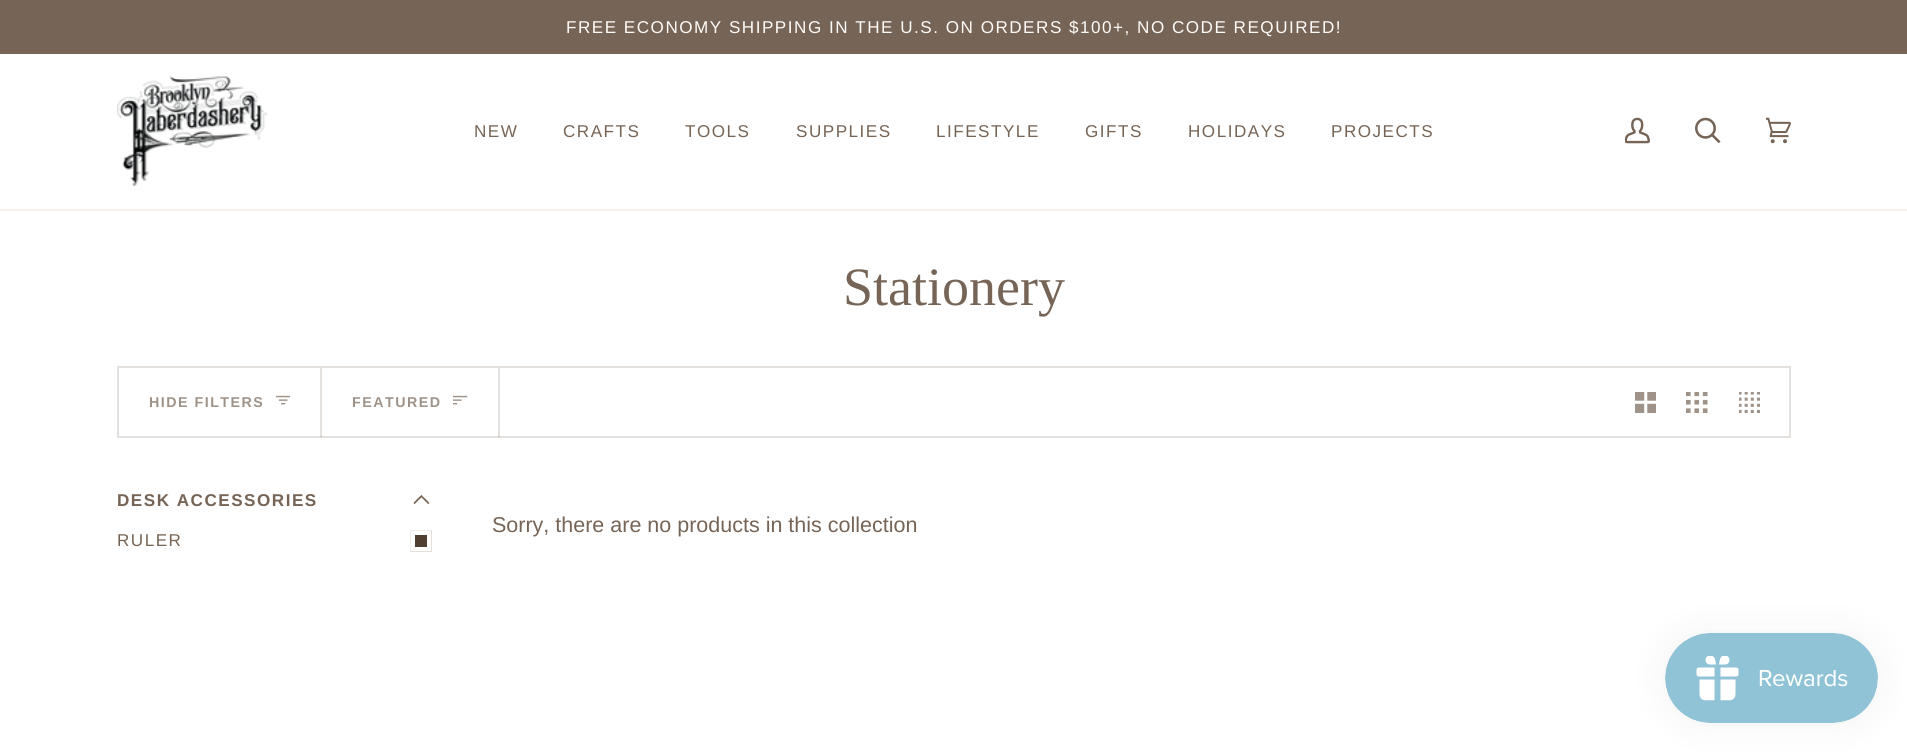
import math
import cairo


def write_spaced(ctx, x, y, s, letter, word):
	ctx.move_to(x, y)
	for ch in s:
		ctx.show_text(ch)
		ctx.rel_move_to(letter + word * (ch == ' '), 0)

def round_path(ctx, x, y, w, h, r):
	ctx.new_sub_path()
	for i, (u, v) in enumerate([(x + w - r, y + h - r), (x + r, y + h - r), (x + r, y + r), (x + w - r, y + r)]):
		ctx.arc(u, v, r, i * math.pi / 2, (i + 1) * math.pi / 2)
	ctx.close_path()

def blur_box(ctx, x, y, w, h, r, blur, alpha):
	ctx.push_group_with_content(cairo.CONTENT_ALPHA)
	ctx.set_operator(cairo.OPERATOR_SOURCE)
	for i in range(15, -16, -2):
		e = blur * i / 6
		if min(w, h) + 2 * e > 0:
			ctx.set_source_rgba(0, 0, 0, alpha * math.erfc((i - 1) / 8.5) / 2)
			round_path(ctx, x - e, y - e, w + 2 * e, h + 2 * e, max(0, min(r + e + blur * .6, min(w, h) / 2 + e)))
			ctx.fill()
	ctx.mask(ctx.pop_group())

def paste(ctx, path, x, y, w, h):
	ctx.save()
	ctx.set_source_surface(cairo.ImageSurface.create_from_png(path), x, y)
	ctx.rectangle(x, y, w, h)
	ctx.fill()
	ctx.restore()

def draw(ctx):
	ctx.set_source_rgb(1, 1, 1)
	ctx.paint()
	ctx.set_source_rgb(0.463, 0.392, 0.337)
	ctx.rectangle(0, 0, 1907, 54)
	ctx.fill()
	ctx.select_font_face('Liberation Sans')
	ctx.set_font_size(17.1)
	ctx.set_source_rgb(1, 0.988, 0.976)
	write_spaced(ctx, 566, 33, 'FREE ECONOMY SHIPPING IN THE U.S. ON ORDERS $100+, NO CODE REQUIRED!', 1.5, 0)
	ctx.set_source_rgb(0.973, 0.941, 0.906)
	ctx.rectangle(0, 209, 1907, 2)
	ctx.fill()
	paste(ctx, 'media/1.png', 117, 76, 150, 110)
	ctx.set_source_rgb(0.463, 0.392, 0.337)
	for x, y, s in [
		(474, 137, 'NEW'),
		(563, 137, 'CRAFTS'),
		(685, 137, 'TOOLS'),
		(796, 137, 'SUPPLIES'),
		(936, 137, 'LIFESTYLE'),
		(1085, 137, 'GIFTS'),
		(1188, 137, 'HOLIDAYS'),
		(1331, 137, 'PROJECTS'),
	]:
		write_spaced(ctx, x, y, s, 1.5, 0)
	paste(ctx, 'media/2.png', 1625, 117, 25, 27)
	paste(ctx, 'media/3.png', 1695, 117, 26, 27)
	paste(ctx, 'media/4.png', 1766, 117, 25, 27)
	ctx.select_font_face('Liberation Serif')
	ctx.set_font_size(54)
	ctx.move_to(843, 305)
	ctx.show_text('Stationery')
	ctx.rectangle(118, 367, 1672, 70)
	ctx.set_source_rgb(0.894, 0.878, 0.867)
	ctx.stroke()
	ctx.set_source_rgba(0.463, 0.392, 0.337, 0.2)
	ctx.rectangle(320, 368, 2, 69)
	ctx.fill()
	ctx.select_font_face('Liberation Sans', cairo.FONT_SLANT_NORMAL, cairo.FONT_WEIGHT_BOLD)
	ctx.set_font_size(14.25)
	ctx.set_source_rgb(0.624, 0.576, 0.537)
	write_spaced(ctx, 149, 407, 'HIDE FILTERS', 1.5, 0)
	paste(ctx, 'media/5.png', 276, 395, 14, 10)
	ctx.set_source_rgba(0.463, 0.392, 0.337, 0.2)
	ctx.rectangle(498, 368, 2, 69)
	ctx.fill()
	ctx.set_source_rgb(0.624, 0.576, 0.537)
	write_spaced(ctx, 352, 407, 'FEATURED', 1.5, 0)
	paste(ctx, 'media/6.png', 453, 395, 15, 10)
	paste(ctx, 'media/7.png', 1635, 392, 21, 21)
	paste(ctx, 'media/8.png', 1686, 392, 22, 21)
	paste(ctx, 'media/9.png', 1739, 392, 21, 21)
	ctx.set_font_size(17.1)
	ctx.set_source_rgb(0.463, 0.392, 0.337)
	write_spaced(ctx, 117, 506, 'DESK ACCESSORIES', 1.5, 0)
	paste(ctx, 'media/10.png', 413, 495, 17, 10)
	ctx.select_font_face('Liberation Sans')
	write_spaced(ctx, 117, 546, 'RULER', 1.5, 0)
	ctx.save()
	ctx.rectangle(410, 530, 22, 22)
	ctx.clip()
	ctx.new_path()
	ctx.move_to(410, 530)
	ctx.line_to(431.5, 530)
	ctx.line_to(431.5, 551.5)
	ctx.line_to(410, 551.5)
	ctx.close_path()
	ctx.set_source_rgb(0.894, 0.878, 0.867)
	ctx.set_line_width(1.1)
	ctx.stroke()
	ctx.restore()
	ctx.set_source_rgb(0.314, 0.243, 0.188)
	ctx.rectangle(415, 535, 12, 12)
	ctx.fill()
	ctx.set_font_size(21.5)
	ctx.set_source_rgb(0.463, 0.392, 0.337)
	ctx.move_to(492, 532)
	ctx.show_text('Sorry, there are no products in this collection')
	ctx.set_source_rgb(0, 0, 0)
	blur_box(ctx, 1665, 633, 213, 90, 45, 19, 0.05)
	paste(ctx, 'media/11.png', 1665, 633, 213, 90)


surface = cairo.ImageSurface(cairo.FORMAT_RGB24, 1907, 753)
ctx = cairo.Context(surface)
options = cairo.FontOptions()
options.set_hint_metrics(cairo.HINT_METRICS_OFF)
options.set_hint_style(cairo.HINT_STYLE_NONE)
ctx.set_font_options(options)
ctx.set_miter_limit(4)
draw(ctx)
surface.write_to_png('image.png')
